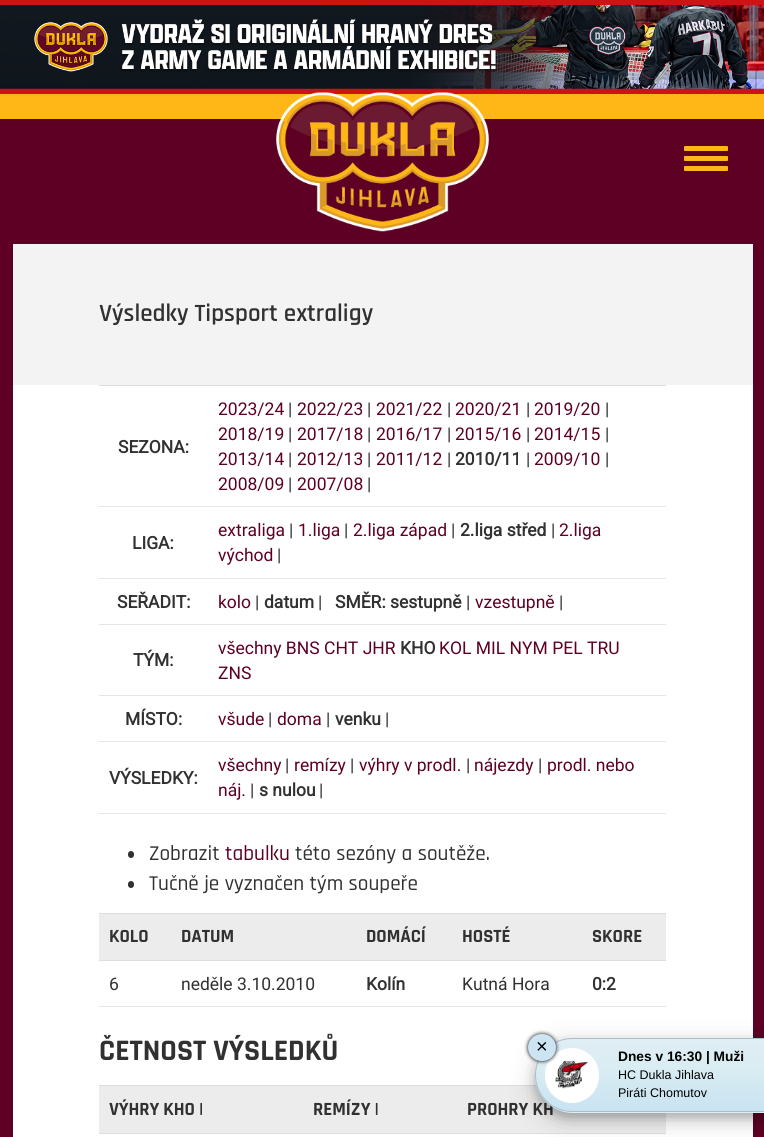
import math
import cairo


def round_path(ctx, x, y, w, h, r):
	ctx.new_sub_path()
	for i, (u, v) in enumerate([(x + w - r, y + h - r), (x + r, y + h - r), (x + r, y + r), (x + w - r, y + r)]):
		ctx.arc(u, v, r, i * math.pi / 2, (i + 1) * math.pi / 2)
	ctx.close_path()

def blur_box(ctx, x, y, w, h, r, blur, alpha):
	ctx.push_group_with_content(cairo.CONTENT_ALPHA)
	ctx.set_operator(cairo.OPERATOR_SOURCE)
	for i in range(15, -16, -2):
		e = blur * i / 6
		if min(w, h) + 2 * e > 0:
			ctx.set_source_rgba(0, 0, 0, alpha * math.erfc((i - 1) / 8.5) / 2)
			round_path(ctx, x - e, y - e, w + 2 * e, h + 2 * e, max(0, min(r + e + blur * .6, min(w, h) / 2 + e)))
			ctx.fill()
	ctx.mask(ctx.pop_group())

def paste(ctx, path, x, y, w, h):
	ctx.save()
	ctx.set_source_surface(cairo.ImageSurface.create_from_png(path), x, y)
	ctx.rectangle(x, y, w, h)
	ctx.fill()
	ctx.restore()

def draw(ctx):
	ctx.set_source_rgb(0.365, 0, 0.141)
	ctx.paint()
	ctx.set_source_rgb(0.808, 0.075, 0.082)
	ctx.rectangle(0, 0, 764, 94)
	ctx.fill()
	paste(ctx, 'media/1.png', 0, 5, 764, 84)
	ctx.set_source_rgb(1, 0.718, 0.094)
	ctx.rectangle(0, 94, 764, 25)
	ctx.fill()
	paste(ctx, 'media/2.png', 276, 92, 213, 140)
	round_path(ctx, 684, 146, 44, 5, 1)
	ctx.fill()
	round_path(ctx, 684, 156, 44, 5, 1)
	ctx.fill()
	round_path(ctx, 684, 166, 44, 5, 1)
	ctx.fill()
	ctx.set_source_rgb(1, 1, 1)
	ctx.rectangle(13, 385, 740, 752)
	ctx.fill()
	ctx.set_source_rgb(0.953, 0.953, 0.953)
	ctx.rectangle(13, 244, 740, 141)
	ctx.fill()
	ctx.select_font_face('Rajdhani SemiBold')
	ctx.set_font_size(25)
	ctx.set_source_rgb(0.192, 0.192, 0.192)
	ctx.move_to(99, 321)
	ctx.show_text('Výsledky Tipsport extraligy')
	ctx.select_font_face('Roboto', cairo.FONT_SLANT_NORMAL, cairo.FONT_WEIGHT_BOLD)
	ctx.set_font_size(17.5)
	ctx.move_to(118, 453)
	ctx.show_text('SEZONA:')
	ctx.set_source_rgb(0.867, 0.867, 0.867)
	ctx.rectangle(99, 385, 567, 1)
	ctx.fill()
	ctx.set_source_rgb(0.898, 0.898, 0.898)
	ctx.rectangle(99, 506, 567, 1)
	ctx.fill()
	ctx.select_font_face('Roboto')
	ctx.set_source_rgb(0.365, 0, 0.141)
	ctx.move_to(218, 415)
	ctx.show_text('2023/24')
	ctx.set_source_rgb(0.192, 0.192, 0.192)
	ctx.move_to(288, 415)
	ctx.show_text('|')
	ctx.set_source_rgb(0.365, 0, 0.141)
	ctx.move_to(297, 415)
	ctx.show_text('2022/23')
	ctx.set_source_rgb(0.192, 0.192, 0.192)
	ctx.move_to(367, 415)
	ctx.show_text('|')
	ctx.set_source_rgb(0.365, 0, 0.141)
	ctx.move_to(376, 415)
	ctx.show_text('2021/22')
	ctx.set_source_rgb(0.192, 0.192, 0.192)
	ctx.move_to(447, 415)
	ctx.show_text('|')
	ctx.set_source_rgb(0.365, 0, 0.141)
	ctx.move_to(455, 415)
	ctx.show_text('2020/21')
	ctx.set_source_rgb(0.192, 0.192, 0.192)
	ctx.move_to(526, 415)
	ctx.show_text('|')
	ctx.set_source_rgb(0.365, 0, 0.141)
	ctx.move_to(534, 415)
	ctx.show_text('2019/20')
	ctx.set_source_rgb(0.192, 0.192, 0.192)
	ctx.move_to(605, 415)
	ctx.show_text('|')
	ctx.set_source_rgb(0.365, 0, 0.141)
	ctx.move_to(218, 440)
	ctx.show_text('2018/19')
	ctx.set_source_rgb(0.192, 0.192, 0.192)
	ctx.move_to(288, 440)
	ctx.show_text('|')
	ctx.set_source_rgb(0.365, 0, 0.141)
	ctx.move_to(297, 440)
	ctx.show_text('2017/18')
	ctx.set_source_rgb(0.192, 0.192, 0.192)
	ctx.move_to(367, 440)
	ctx.show_text('|')
	ctx.set_source_rgb(0.365, 0, 0.141)
	ctx.move_to(376, 440)
	ctx.show_text('2016/17')
	ctx.set_source_rgb(0.192, 0.192, 0.192)
	ctx.move_to(447, 440)
	ctx.show_text('|')
	ctx.set_source_rgb(0.365, 0, 0.141)
	ctx.move_to(455, 440)
	ctx.show_text('2015/16')
	ctx.set_source_rgb(0.192, 0.192, 0.192)
	ctx.move_to(526, 440)
	ctx.show_text('|')
	ctx.set_source_rgb(0.365, 0, 0.141)
	ctx.move_to(534, 440)
	ctx.show_text('2014/15')
	ctx.set_source_rgb(0.192, 0.192, 0.192)
	ctx.move_to(605, 440)
	ctx.show_text('|')
	ctx.set_source_rgb(0.365, 0, 0.141)
	ctx.move_to(218, 465)
	ctx.show_text('2013/14')
	ctx.set_source_rgb(0.192, 0.192, 0.192)
	ctx.move_to(288, 465)
	ctx.show_text('|')
	ctx.set_source_rgb(0.365, 0, 0.141)
	ctx.move_to(297, 465)
	ctx.show_text('2012/13')
	ctx.set_source_rgb(0.192, 0.192, 0.192)
	ctx.move_to(367, 465)
	ctx.show_text('|')
	ctx.set_source_rgb(0.365, 0, 0.141)
	ctx.move_to(376, 465)
	ctx.show_text('2011/12')
	ctx.set_source_rgb(0.192, 0.192, 0.192)
	ctx.move_to(447, 465)
	ctx.show_text('|')
	ctx.select_font_face('Roboto', cairo.FONT_SLANT_NORMAL, cairo.FONT_WEIGHT_BOLD)
	ctx.move_to(455, 465)
	ctx.show_text('2010/11')
	ctx.select_font_face('Roboto')
	ctx.move_to(526, 465)
	ctx.show_text('|')
	ctx.set_source_rgb(0.365, 0, 0.141)
	ctx.move_to(534, 465)
	ctx.show_text('2009/10')
	ctx.set_source_rgb(0.192, 0.192, 0.192)
	ctx.move_to(605, 465)
	ctx.show_text('|')
	ctx.set_source_rgb(0.365, 0, 0.141)
	ctx.move_to(218, 490)
	ctx.show_text('2008/09')
	ctx.set_source_rgb(0.192, 0.192, 0.192)
	ctx.move_to(288, 490)
	ctx.show_text('|')
	ctx.set_source_rgb(0.365, 0, 0.141)
	ctx.move_to(297, 490)
	ctx.show_text('2007/08')
	ctx.set_source_rgb(0.192, 0.192, 0.192)
	ctx.move_to(367, 490)
	ctx.show_text('|')
	ctx.select_font_face('Roboto', cairo.FONT_SLANT_NORMAL, cairo.FONT_WEIGHT_BOLD)
	ctx.move_to(132, 549)
	ctx.show_text('LIGA:')
	ctx.set_source_rgb(0.898, 0.898, 0.898)
	ctx.rectangle(99, 578, 567, 1)
	ctx.fill()
	ctx.select_font_face('Roboto')
	ctx.set_source_rgb(0.365, 0, 0.141)
	ctx.move_to(218, 536)
	ctx.show_text('extraliga')
	ctx.set_source_rgb(0.192, 0.192, 0.192)
	ctx.move_to(289, 536)
	ctx.show_text('|')
	ctx.set_source_rgb(0.365, 0, 0.141)
	ctx.move_to(298, 536)
	ctx.show_text('1.liga')
	ctx.set_source_rgb(0.192, 0.192, 0.192)
	ctx.move_to(344, 536)
	ctx.show_text('|')
	ctx.set_source_rgb(0.365, 0, 0.141)
	ctx.move_to(353, 536)
	ctx.show_text('2.liga západ')
	ctx.set_source_rgb(0.192, 0.192, 0.192)
	ctx.move_to(451, 536)
	ctx.show_text('|')
	ctx.select_font_face('Roboto', cairo.FONT_SLANT_NORMAL, cairo.FONT_WEIGHT_BOLD)
	ctx.move_to(460, 536)
	ctx.show_text('2.liga střed')
	ctx.select_font_face('Roboto')
	ctx.move_to(551, 536)
	ctx.show_text('|')
	ctx.set_source_rgb(0.365, 0, 0.141)
	ctx.move_to(559, 536)
	ctx.show_text('2.liga')
	ctx.move_to(218, 561)
	ctx.show_text('východ')
	ctx.set_source_rgb(0.192, 0.192, 0.192)
	ctx.move_to(277, 561)
	ctx.show_text('|')
	ctx.select_font_face('Roboto', cairo.FONT_SLANT_NORMAL, cairo.FONT_WEIGHT_BOLD)
	ctx.move_to(117, 608)
	ctx.show_text('SEŘADIT:')
	ctx.set_source_rgb(0.898, 0.898, 0.898)
	ctx.rectangle(99, 624, 567, 1)
	ctx.fill()
	ctx.select_font_face('Roboto')
	ctx.set_source_rgb(0.365, 0, 0.141)
	ctx.move_to(218, 608)
	ctx.show_text('kolo')
	ctx.set_source_rgb(0.192, 0.192, 0.192)
	ctx.move_to(255, 608)
	ctx.show_text('|')
	ctx.select_font_face('Roboto', cairo.FONT_SLANT_NORMAL, cairo.FONT_WEIGHT_BOLD)
	ctx.move_to(264, 608)
	ctx.show_text('datum')
	ctx.select_font_face('Roboto')
	ctx.move_to(318, 608)
	ctx.show_text('|')
	ctx.select_font_face('Roboto', cairo.FONT_SLANT_NORMAL, cairo.FONT_WEIGHT_BOLD)
	ctx.move_to(335, 608)
	ctx.show_text('SMĚR: sestupně')
	ctx.select_font_face('Roboto')
	ctx.move_to(466, 608)
	ctx.show_text('|')
	ctx.set_source_rgb(0.365, 0, 0.141)
	ctx.move_to(475, 608)
	ctx.show_text('vzestupně')
	ctx.set_source_rgb(0.192, 0.192, 0.192)
	ctx.move_to(559, 608)
	ctx.show_text('|')
	ctx.select_font_face('Roboto', cairo.FONT_SLANT_NORMAL, cairo.FONT_WEIGHT_BOLD)
	ctx.move_to(133, 666)
	ctx.show_text('TÝM:')
	ctx.set_source_rgb(0.898, 0.898, 0.898)
	ctx.rectangle(99, 695, 567, 1)
	ctx.fill()
	ctx.select_font_face('Roboto')
	ctx.set_source_rgb(0.365, 0, 0.141)
	ctx.move_to(218, 654)
	ctx.show_text('všechny BNS CHT JHR')
	ctx.select_font_face('Roboto', cairo.FONT_SLANT_NORMAL, cairo.FONT_WEIGHT_BOLD)
	ctx.set_source_rgb(0.192, 0.192, 0.192)
	ctx.move_to(400, 654)
	ctx.show_text('KHO')
	ctx.select_font_face('Roboto')
	ctx.set_source_rgb(0.365, 0, 0.141)
	ctx.move_to(439, 654)
	ctx.show_text('KOL MIL NYM PEL TRU')
	ctx.move_to(218, 679)
	ctx.show_text('ZNS')
	ctx.select_font_face('Roboto', cairo.FONT_SLANT_NORMAL, cairo.FONT_WEIGHT_BOLD)
	ctx.set_source_rgb(0.192, 0.192, 0.192)
	ctx.move_to(125, 725)
	ctx.show_text('MÍSTO:')
	ctx.set_source_rgb(0.898, 0.898, 0.898)
	ctx.rectangle(99, 741, 567, 1)
	ctx.fill()
	ctx.select_font_face('Roboto')
	ctx.set_source_rgb(0.365, 0, 0.141)
	ctx.move_to(218, 725)
	ctx.show_text('všude')
	ctx.set_source_rgb(0.192, 0.192, 0.192)
	ctx.move_to(268, 725)
	ctx.show_text('|')
	ctx.set_source_rgb(0.365, 0, 0.141)
	ctx.move_to(277, 725)
	ctx.show_text('doma')
	ctx.set_source_rgb(0.192, 0.192, 0.192)
	ctx.move_to(326, 725)
	ctx.show_text('|')
	ctx.select_font_face('Roboto', cairo.FONT_SLANT_NORMAL, cairo.FONT_WEIGHT_BOLD)
	ctx.move_to(335, 725)
	ctx.show_text('venku')
	ctx.select_font_face('Roboto')
	ctx.move_to(385, 725)
	ctx.show_text('|')
	ctx.select_font_face('Roboto', cairo.FONT_SLANT_NORMAL, cairo.FONT_WEIGHT_BOLD)
	ctx.move_to(109, 784)
	ctx.show_text('VÝSLEDKY:')
	ctx.set_source_rgb(0.898, 0.898, 0.898)
	ctx.rectangle(99, 813, 567, 1)
	ctx.fill()
	ctx.select_font_face('Roboto')
	ctx.set_source_rgb(0.365, 0, 0.141)
	ctx.move_to(218, 771)
	ctx.show_text('všechny')
	ctx.set_source_rgb(0.192, 0.192, 0.192)
	ctx.move_to(285, 771)
	ctx.show_text('|')
	ctx.set_source_rgb(0.365, 0, 0.141)
	ctx.move_to(294, 771)
	ctx.show_text('remízy')
	ctx.set_source_rgb(0.192, 0.192, 0.192)
	ctx.move_to(350, 771)
	ctx.show_text('|')
	ctx.set_source_rgb(0.365, 0, 0.141)
	ctx.move_to(359, 771)
	ctx.show_text('výhry v prodl.')
	ctx.set_source_rgb(0.192, 0.192, 0.192)
	ctx.move_to(466, 771)
	ctx.show_text('|')
	ctx.set_source_rgb(0.365, 0, 0.141)
	ctx.move_to(474, 771)
	ctx.show_text('nájezdy')
	ctx.set_source_rgb(0.192, 0.192, 0.192)
	ctx.move_to(538, 771)
	ctx.show_text('|')
	ctx.set_source_rgb(0.365, 0, 0.141)
	ctx.move_to(547, 771)
	ctx.show_text('prodl. nebo')
	ctx.move_to(218, 796)
	ctx.show_text('náj.')
	ctx.set_source_rgb(0.192, 0.192, 0.192)
	ctx.move_to(250, 796)
	ctx.show_text('|')
	ctx.select_font_face('Roboto', cairo.FONT_SLANT_NORMAL, cairo.FONT_WEIGHT_BOLD)
	ctx.move_to(259, 796)
	ctx.show_text('s nulou')
	ctx.select_font_face('Roboto')
	ctx.move_to(319, 796)
	ctx.show_text('|')
	round_path(ctx, 128, 851, 6, 7, 3)
	ctx.fill()
	ctx.select_font_face('Rajdhani Medium')
	ctx.set_font_size(21.25)
	ctx.move_to(149, 860)
	ctx.show_text('Zobrazit')
	ctx.set_source_rgb(0.365, 0, 0.141)
	ctx.move_to(225, 860)
	ctx.show_text('tabulku')
	ctx.set_source_rgb(0.192, 0.192, 0.192)
	ctx.move_to(295, 860)
	ctx.show_text('této sezóny a soutěže.')
	round_path(ctx, 128, 881, 6, 7, 3)
	ctx.fill()
	ctx.move_to(149, 890)
	ctx.show_text('Tučně je vyznačen tým soupeře')
	ctx.set_source_rgb(0.925, 0.925, 0.925)
	ctx.rectangle(99, 914, 567, 46)
	ctx.fill()
	ctx.select_font_face('Rajdhani', cairo.FONT_SLANT_NORMAL, cairo.FONT_WEIGHT_BOLD)
	ctx.set_font_size(18.75)
	ctx.set_source_rgb(0.192, 0.192, 0.192)
	for x, y, s in [
		(109, 942, 'KOLO'),
		(181, 942, 'DATUM'),
		(366, 942, 'DOMÁCÍ'),
		(462, 942, 'HOSTÉ'),
	]:
		ctx.move_to(x, y)
		ctx.show_text(s)
	ctx.set_source_rgb(0.867, 0.867, 0.867)
	ctx.rectangle(99, 913, 567, 1)
	ctx.fill()
	ctx.set_source_rgb(0.192, 0.192, 0.192)
	ctx.move_to(592, 942)
	ctx.show_text('SKORE')
	ctx.select_font_face('Roboto')
	ctx.set_font_size(17.5)
	ctx.move_to(109, 990)
	ctx.show_text('6')
	ctx.move_to(181, 990)
	ctx.show_text('neděle 3.10.2010')
	ctx.select_font_face('Roboto', cairo.FONT_SLANT_NORMAL, cairo.FONT_WEIGHT_BOLD)
	ctx.move_to(366, 990)
	ctx.show_text('Kolín')
	ctx.select_font_face('Roboto')
	ctx.move_to(462, 990)
	ctx.show_text('Kutná Hora')
	ctx.set_source_rgb(0.867, 0.867, 0.867)
	ctx.rectangle(99, 960, 567, 1)
	ctx.fill()
	ctx.set_source_rgb(0.898, 0.898, 0.898)
	ctx.rectangle(99, 1006, 567, 1)
	ctx.fill()
	ctx.select_font_face('Roboto', cairo.FONT_SLANT_NORMAL, cairo.FONT_WEIGHT_BOLD)
	ctx.set_source_rgb(0.192, 0.192, 0.192)
	ctx.move_to(592, 990)
	ctx.show_text('0:2')
	ctx.select_font_face('Rajdhani', cairo.FONT_SLANT_NORMAL, cairo.FONT_WEIGHT_BOLD)
	ctx.set_font_size(30)
	ctx.move_to(99, 1060)
	ctx.show_text('ČETNOST VÝSLEDKŮ')
	ctx.set_source_rgb(0.925, 0.925, 0.925)
	ctx.rectangle(99, 1086, 567, 47)
	ctx.fill()
	ctx.set_font_size(18.75)
	ctx.set_source_rgb(0.192, 0.192, 0.192)
	ctx.move_to(109, 1115)
	ctx.show_text('VÝHRY KHO |')
	ctx.move_to(313, 1115)
	ctx.show_text('REMÍZY |')
	ctx.set_source_rgb(0.867, 0.867, 0.867)
	ctx.rectangle(99, 1085, 438, 1)
	ctx.fill()
	ctx.set_source_rgb(0.192, 0.192, 0.192)
	ctx.move_to(467, 1115)
	ctx.show_text('PROHRY KH')
	ctx.set_source_rgb(0.867, 0.867, 0.867)
	ctx.rectangle(99, 1133, 567, 1)
	ctx.fill()
	ctx.set_source_rgb(0, 0, 0)
	blur_box(ctx, 535, 1045, 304, 75, 37.5, 12.5, 0.19)
	blur_box(ctx, 535, 1043, 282, 75, 37.5, 5, 0.2)
	ctx.save()
	ctx.new_path()
	ctx.move_to(572.5, 1038)
	ctx.line_to(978, 1038)
	ctx.line_to(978, 1113)
	ctx.line_to(572.5, 1113)
	ctx.curve_to(552, 1113, 535, 1096, 535, 1075.5)
	ctx.curve_to(535, 1055, 552, 1038, 572.5, 1038)
	ctx.close_path()
	ctx.clip()
	gradient = cairo.LinearGradient(757, 1039, 757, 1111)
	gradient.add_color_stop_rgba(0, 0.878, 0.929, 0.957, 1)
	gradient.add_color_stop_rgba(0.4, 0.851, 0.929, 0.949, 1)
	gradient.add_color_stop_rgba(1, 0.788, 0.89, 0.949, 1)
	ctx.set_source(gradient)
	ctx.rectangle(535, 1039, 229, 72)
	ctx.fill()
	gradient = cairo.LinearGradient(757, 1111, 757, 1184)
	gradient.add_color_stop_rgba(0, 0.878, 0.929, 0.957, 1)
	gradient.add_color_stop_rgba(0.4, 0.851, 0.929, 0.949, 1)
	gradient.add_color_stop_rgba(1, 0.788, 0.89, 0.949, 1)
	ctx.set_source(gradient)
	ctx.rectangle(560, 1111, 204, 2)
	ctx.fill()
	ctx.restore()
	ctx.set_source_rgb(0.667, 0.745, 0.792)
	ctx.set_fill_rule(cairo.FILL_RULE_EVEN_ODD)
	ctx.new_path()
	ctx.move_to(572, 1038)
	ctx.line_to(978, 1038)
	ctx.line_to(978, 1112)
	ctx.line_to(572, 1112)
	ctx.curve_to(552, 1112, 535, 1096, 535, 1075)
	ctx.curve_to(535, 1054, 552, 1038, 572, 1038)
	ctx.close_path()
	ctx.move_to(572, 1039)
	ctx.line_to(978, 1039)
	ctx.line_to(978, 1111)
	ctx.line_to(572, 1111)
	ctx.curve_to(552, 1111, 536, 1095, 536, 1075)
	ctx.curve_to(536, 1055, 552, 1039, 572, 1039)
	ctx.close_path()
	ctx.fill()
	ctx.set_source_rgb(1, 1, 1)
	round_path(ctx, 545, 1048, 54, 55, 27)
	ctx.fill()
	paste(ctx, 'media/3.png', 555, 1060, 33, 29)
	ctx.set_source_rgb(0, 0, 0)
	blur_box(ctx, 528, 1034, 28, 27, 13.5, 2, 1)
	ctx.set_source_rgb(0.804, 0.898, 0.949)
	round_path(ctx, 528, 1034, 28, 27, 13.5)
	ctx.fill()
	ctx.select_font_face('Liberation Sans')
	ctx.set_font_size(20)
	ctx.set_source_rgb(0, 0, 0)
	ctx.move_to(536, 1053)
	ctx.show_text('×')
	ctx.select_font_face('Liberation Sans', cairo.FONT_SLANT_NORMAL, cairo.FONT_WEIGHT_BOLD)
	ctx.set_font_size(13.75)
	ctx.move_to(618, 1061)
	ctx.show_text('Dnes v 16:30 | Muži')
	ctx.select_font_face('Liberation Sans')
	ctx.set_font_size(12.5)
	ctx.move_to(618, 1079)
	ctx.show_text('HC Dukla Jihlava')
	ctx.move_to(618, 1097)
	ctx.show_text('Piráti Chomutov')


surface = cairo.ImageSurface(cairo.FORMAT_RGB24, 764, 1137)
ctx = cairo.Context(surface)
options = cairo.FontOptions()
options.set_hint_metrics(cairo.HINT_METRICS_OFF)
options.set_hint_style(cairo.HINT_STYLE_NONE)
ctx.set_font_options(options)
ctx.set_miter_limit(4)
draw(ctx)
surface.write_to_png('image.png')
